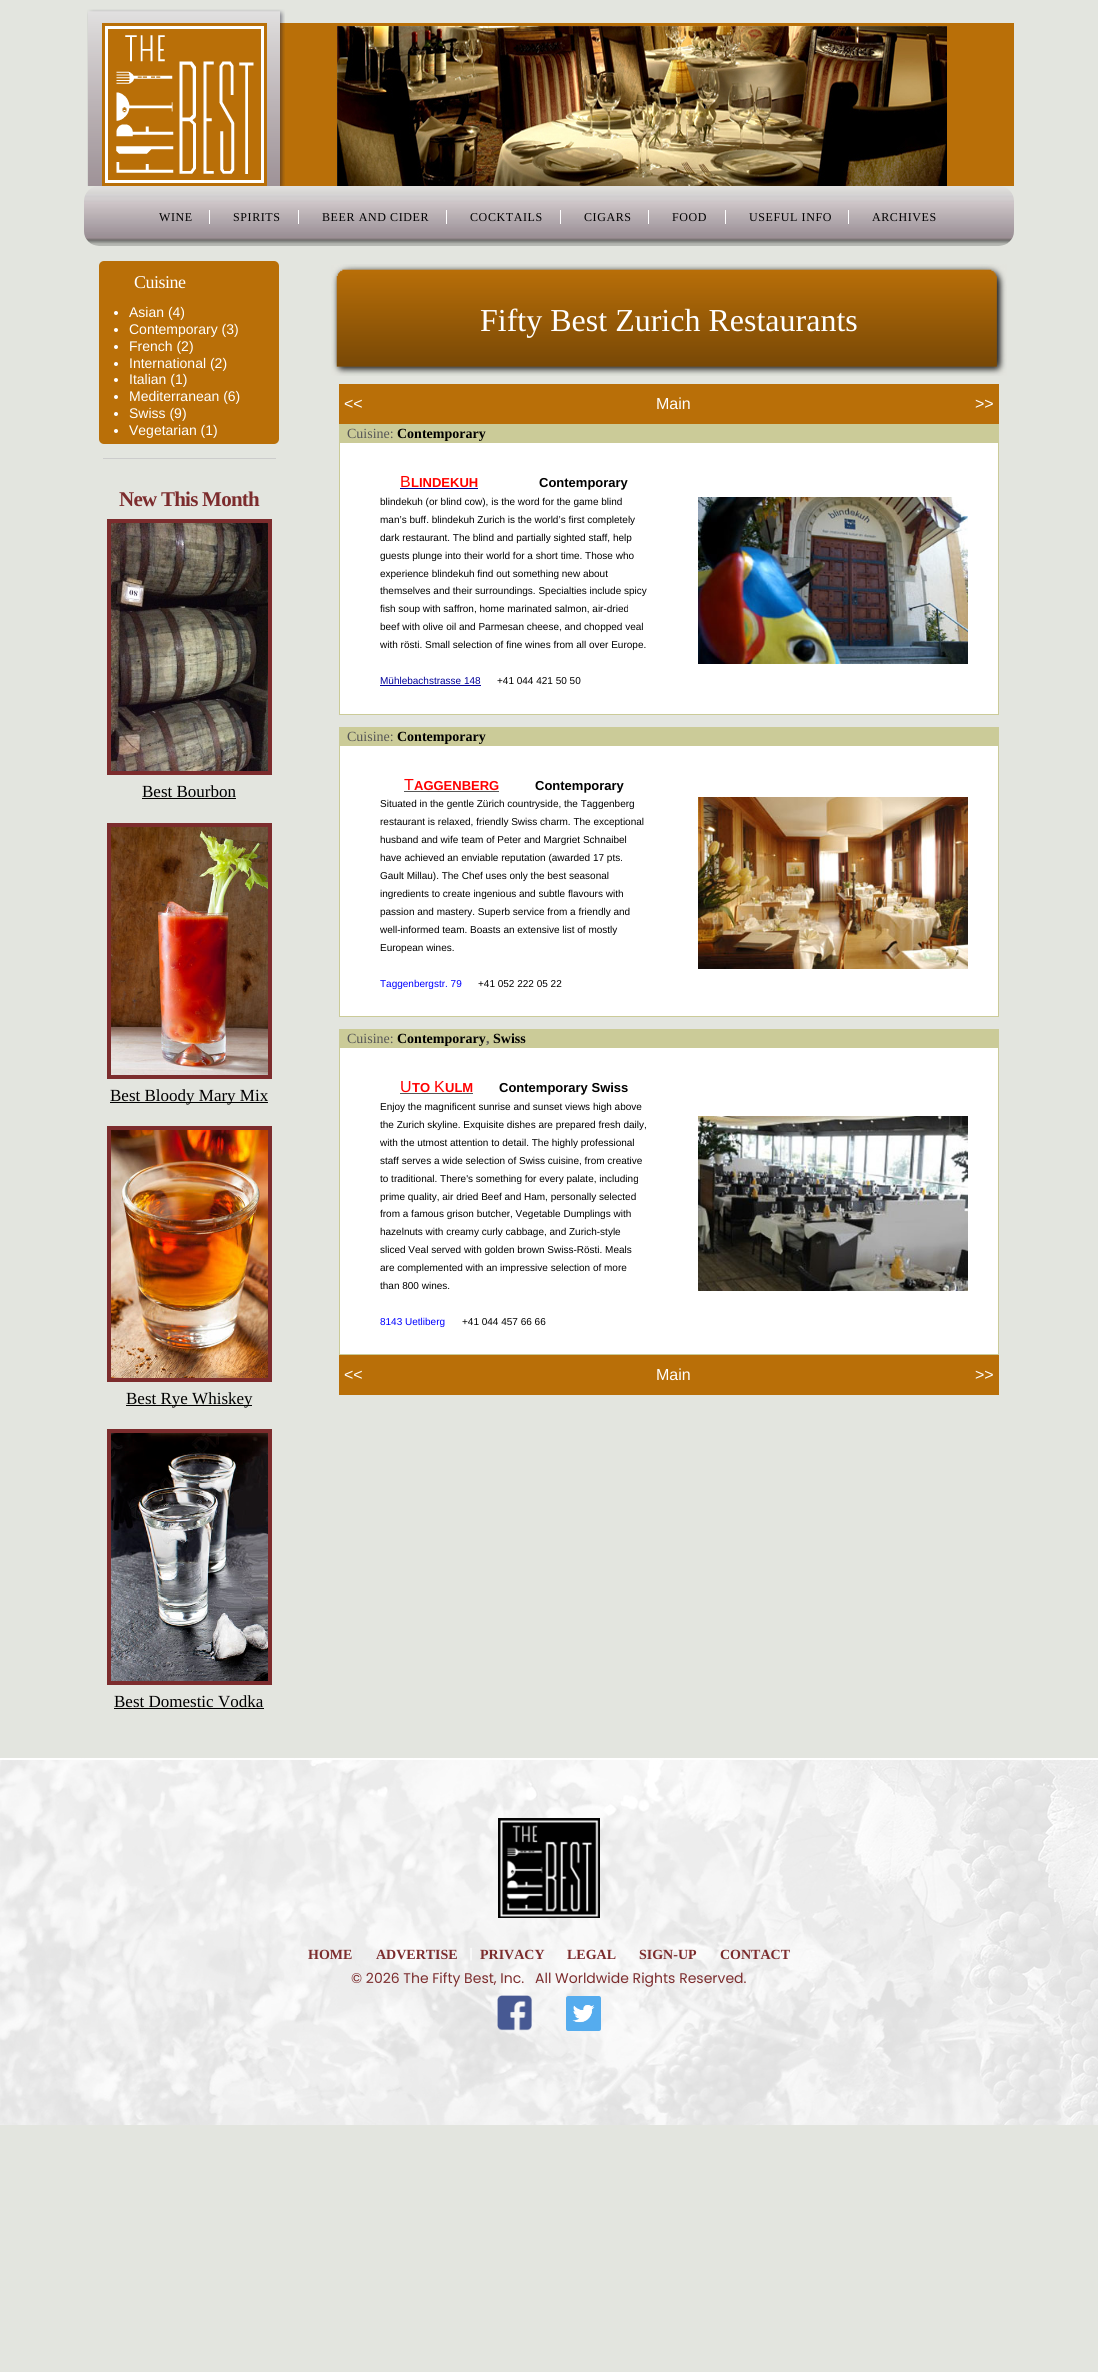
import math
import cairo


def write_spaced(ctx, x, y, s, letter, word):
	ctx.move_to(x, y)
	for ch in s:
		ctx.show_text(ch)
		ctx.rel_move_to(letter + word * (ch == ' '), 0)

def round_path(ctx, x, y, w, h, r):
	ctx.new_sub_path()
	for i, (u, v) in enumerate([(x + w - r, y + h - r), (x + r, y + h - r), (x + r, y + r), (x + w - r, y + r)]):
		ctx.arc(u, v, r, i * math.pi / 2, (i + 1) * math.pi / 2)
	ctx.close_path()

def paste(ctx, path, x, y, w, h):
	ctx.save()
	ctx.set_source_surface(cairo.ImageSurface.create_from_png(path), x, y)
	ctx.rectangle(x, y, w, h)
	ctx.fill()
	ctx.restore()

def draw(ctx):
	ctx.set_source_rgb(0.89, 0.898, 0.875)
	ctx.paint()
	ctx.set_source_rgb(0.725, 0.435, 0.035)
	ctx.rectangle(280, 23, 734, 163)
	ctx.fill()
	paste(ctx, 'media/1.png', 87, 9, 198, 177)
	ctx.rectangle(102, 23, 165, 163)
	ctx.fill()
	paste(ctx, 'media/2.png', 105, 26, 159, 157)
	paste(ctx, 'media/3.png', 337, 26, 610, 160)
	paste(ctx, 'media/4.png', 84, 186, 930, 60)
	ctx.select_font_face('Liberation Serif')
	ctx.set_font_size(12)
	ctx.set_source_rgb(0, 0, 0)
	write_spaced(ctx, 159, 221, 'WINE', 0.6, 0)
	ctx.set_source_rgb(1, 1, 1)
	ctx.rectangle(209, 210, 1, 14)
	ctx.fill()
	ctx.set_source_rgb(0, 0, 0)
	write_spaced(ctx, 233, 221, 'SPIRITS', 0.6, 0)
	ctx.set_source_rgb(1, 1, 1)
	ctx.rectangle(298, 210, 1, 14)
	ctx.fill()
	ctx.set_source_rgb(0, 0, 0)
	write_spaced(ctx, 322, 221, 'BEER AND CIDER', 0.6, 0)
	ctx.set_source_rgb(1, 1, 1)
	ctx.rectangle(446, 210, 1, 14)
	ctx.fill()
	ctx.set_source_rgb(0, 0, 0)
	write_spaced(ctx, 470, 221, 'COCKTAILS', 0.6, 0)
	ctx.set_source_rgb(1, 1, 1)
	ctx.rectangle(560, 210, 1, 14)
	ctx.fill()
	ctx.set_source_rgb(0, 0, 0)
	write_spaced(ctx, 584, 221, 'CIGARS', 0.6, 0)
	ctx.set_source_rgb(1, 1, 1)
	ctx.rectangle(648, 210, 1, 14)
	ctx.fill()
	ctx.set_source_rgb(0, 0, 0)
	write_spaced(ctx, 672, 221, 'FOOD', 0.6, 0)
	ctx.set_source_rgb(1, 1, 1)
	ctx.rectangle(725, 210, 1, 14)
	ctx.fill()
	ctx.set_source_rgb(0, 0, 0)
	write_spaced(ctx, 749, 221, 'USEFUL INFO', 0.6, 0)
	ctx.set_source_rgb(1, 1, 1)
	ctx.rectangle(848, 210, 1, 14)
	ctx.fill()
	ctx.set_source_rgb(0, 0, 0)
	write_spaced(ctx, 872, 221, 'ARCHIVES', 0.6, 0)
	ctx.set_source_rgb(0.725, 0.435, 0.035)
	round_path(ctx, 99, 261, 180, 183, 5)
	ctx.fill()
	ctx.set_font_size(18)
	ctx.set_source_rgb(1, 1, 1)
	write_spaced(ctx, 134, 288, 'Cuisine', -0.5, 0)
	ctx.new_path()
	ctx.arc(116, 313, 2, 0, 2 * math.pi)
	ctx.fill()
	ctx.select_font_face('Liberation Sans')
	ctx.set_font_size(14)
	ctx.move_to(129, 317)
	ctx.show_text('Asian (4)')
	ctx.new_path()
	ctx.arc(116, 330, 2, 0, 2 * math.pi)
	ctx.fill()
	ctx.move_to(129, 334)
	ctx.show_text('Contemporary (3)')
	ctx.new_path()
	ctx.arc(116, 347, 2, 0, 2 * math.pi)
	ctx.fill()
	ctx.move_to(129, 351)
	ctx.show_text('French (2)')
	ctx.new_path()
	ctx.arc(116, 364, 2, 0, 2 * math.pi)
	ctx.fill()
	ctx.move_to(129, 368)
	ctx.show_text('International (2)')
	ctx.new_path()
	ctx.arc(116, 380, 2, 0, 2 * math.pi)
	ctx.fill()
	ctx.move_to(129, 384)
	ctx.show_text('Italian (1)')
	ctx.new_path()
	ctx.arc(116, 397, 2, 0, 2 * math.pi)
	ctx.fill()
	ctx.move_to(129, 401)
	ctx.show_text('Mediterranean (6)')
	ctx.new_path()
	ctx.arc(116, 414, 2, 0, 2 * math.pi)
	ctx.fill()
	ctx.move_to(129, 418)
	ctx.show_text('Swiss (9)')
	ctx.new_path()
	ctx.arc(116, 431, 2, 0, 2 * math.pi)
	ctx.fill()
	ctx.move_to(129, 435)
	ctx.show_text('Vegetarian (1)')
	ctx.set_source_rgb(0.8, 0.8, 0.8)
	ctx.rectangle(103, 458, 173, 1)
	ctx.fill()
	ctx.select_font_face('Liberation Serif', cairo.FONT_SLANT_NORMAL, cairo.FONT_WEIGHT_BOLD)
	ctx.set_font_size(21)
	ctx.set_source_rgb(0.486, 0.173, 0.176)
	write_spaced(ctx, 119, 506, 'New This Month', -0.75, 0)
	ctx.rectangle(109, 521, 161, 252)
	ctx.set_line_width(4)
	ctx.stroke()
	paste(ctx, 'media/5.png', 111, 523, 157, 248)
	ctx.select_font_face('Liberation Serif')
	ctx.set_font_size(17)
	ctx.set_source_rgb(0, 0, 0)
	ctx.move_to(142, 797)
	ctx.show_text('Best Bourbon')
	ctx.rectangle(142, 798, 94, 1)
	ctx.fill()
	ctx.rectangle(109, 825, 161, 252)
	ctx.set_source_rgb(0.486, 0.173, 0.176)
	ctx.stroke()
	paste(ctx, 'media/6.png', 111, 827, 157, 248)
	ctx.set_source_rgb(0, 0, 0)
	ctx.rectangle(110, 1102, 158, 1)
	ctx.fill()
	ctx.move_to(110, 1101)
	ctx.show_text('Best Bloody Mary Mix')
	ctx.rectangle(109, 1128, 161, 252)
	ctx.set_source_rgb(0.486, 0.173, 0.176)
	ctx.stroke()
	paste(ctx, 'media/7.png', 111, 1130, 157, 248)
	ctx.set_source_rgb(0, 0, 0)
	ctx.rectangle(126, 1405, 126, 1)
	ctx.fill()
	ctx.move_to(126, 1404)
	ctx.show_text('Best Rye Whiskey')
	ctx.rectangle(109, 1431, 161, 252)
	ctx.set_source_rgb(0.486, 0.173, 0.176)
	ctx.stroke()
	paste(ctx, 'media/8.png', 111, 1433, 157, 248)
	ctx.set_source_rgb(0, 0, 0)
	ctx.move_to(114, 1707)
	ctx.show_text('Best Domestic Vodka')
	ctx.rectangle(114, 1708, 150, 1)
	ctx.fill()
	paste(ctx, 'media/9.png', 331, 264, 676, 112)
	ctx.set_font_size(32)
	ctx.set_source_rgb(1, 1, 1)
	ctx.move_to(480, 331)
	ctx.show_text('Fifty Best Zurich Restaurants')
	ctx.set_source_rgb(0.725, 0.435, 0.035)
	ctx.rectangle(339, 384, 660, 40)
	ctx.fill()
	ctx.select_font_face('Liberation Sans')
	ctx.set_font_size(16)
	ctx.set_source_rgb(1, 1, 1)
	for x, y, s in [
		(344, 409, '<<'),
		(656, 409, 'Main'),
		(975, 409, '>>'),
	]:
		ctx.move_to(x, y)
		ctx.show_text(s)
	ctx.rectangle(340, 443, 658, 271)
	ctx.fill()
	ctx.rectangle(339.5, 424.5, 659, 290)
	ctx.set_source_rgb(0.796, 0.796, 0.596)
	ctx.set_line_width(1)
	ctx.stroke()
	ctx.rectangle(340, 425, 658, 18)
	ctx.fill()
	ctx.select_font_face('Liberation Serif')
	ctx.set_font_size(14)
	ctx.set_source_rgb(0.337, 0.337, 0.337)
	ctx.move_to(347, 438)
	ctx.show_text('Cuisine:')
	ctx.select_font_face('Liberation Serif', cairo.FONT_SLANT_NORMAL, cairo.FONT_WEIGHT_BOLD)
	ctx.set_source_rgb(0, 0, 0)
	ctx.move_to(397, 438)
	ctx.show_text('Contemporary')
	ctx.select_font_face('Liberation Sans')
	ctx.set_font_size(16)
	ctx.set_source_rgb(1, 0, 0)
	ctx.move_to(400, 487)
	ctx.show_text('B')
	ctx.select_font_face('Liberation Sans', cairo.FONT_SLANT_NORMAL, cairo.FONT_WEIGHT_BOLD)
	ctx.set_font_size(13)
	ctx.move_to(411, 487)
	ctx.show_text('LINDEKUH')
	ctx.set_source_rgb(0, 0, 0.6)
	ctx.rectangle(400, 488, 78, 1)
	ctx.fill()
	ctx.set_source_rgb(0, 0, 0)
	ctx.move_to(539, 487)
	ctx.show_text('Contemporary')
	ctx.select_font_face('Liberation Sans')
	ctx.set_font_size(10)
	for x, y, s in [
		(380, 505, 'blindekuh (or blind cow), is the word for the game blind'),
		(380, 523, 'man’s buff. blindekuh Zurich is the world’s first completely'),
		(380, 541, 'dark restaurant. The blind and partially sighted staff, help'),
		(380, 559, 'guests plunge into their world for a short time. Those who'),
		(380, 577, 'experience blindekuh find out something new about'),
		(380, 594, 'themselves and their surroundings. Specialties include spicy'),
		(380, 612, 'fish soup with saffron, home marinated salmon, air-dried'),
		(380, 630, 'beef with olive oil and Parmesan cheese, and chopped veal'),
		(380, 648, 'with rösti. Small selection of fine wines from all over Europe.'),
	]:
		ctx.move_to(x, y)
		ctx.show_text(s)
	ctx.set_source_rgb(0, 0, 0.6)
	ctx.move_to(380, 684)
	ctx.show_text('Mühlebachstrasse 148')
	ctx.rectangle(380, 685, 101, 1)
	ctx.fill()
	ctx.set_source_rgb(0, 0, 0)
	ctx.move_to(497, 684)
	ctx.show_text('+41 044 421 50 50')
	paste(ctx, 'media/10.png', 698, 497, 270, 167)
	ctx.set_source_rgb(1, 1, 1)
	ctx.rectangle(340, 746, 658, 270)
	ctx.fill()
	ctx.rectangle(339.5, 727.5, 659, 289)
	ctx.set_source_rgb(0.796, 0.796, 0.596)
	ctx.stroke()
	ctx.rectangle(340, 728, 658, 18)
	ctx.fill()
	ctx.select_font_face('Liberation Serif')
	ctx.set_font_size(14)
	ctx.set_source_rgb(0.337, 0.337, 0.337)
	ctx.move_to(347, 741)
	ctx.show_text('Cuisine:')
	ctx.select_font_face('Liberation Serif', cairo.FONT_SLANT_NORMAL, cairo.FONT_WEIGHT_BOLD)
	ctx.set_source_rgb(0, 0, 0)
	ctx.move_to(397, 741)
	ctx.show_text('Contemporary')
	ctx.select_font_face('Liberation Sans')
	ctx.set_font_size(16)
	ctx.set_source_rgb(1, 0, 0)
	ctx.move_to(404, 790)
	ctx.show_text('T')
	ctx.select_font_face('Liberation Sans', cairo.FONT_SLANT_NORMAL, cairo.FONT_WEIGHT_BOLD)
	ctx.set_font_size(13)
	ctx.move_to(414, 790)
	ctx.show_text('AGGENBERG')
	ctx.set_source_rgb(0.337, 0.337, 0.337)
	ctx.rectangle(404, 791, 95, 1)
	ctx.fill()
	ctx.set_source_rgb(0, 0, 0)
	ctx.move_to(535, 790)
	ctx.show_text('Contemporary')
	ctx.select_font_face('Liberation Sans')
	ctx.set_font_size(10)
	for x, y, s in [
		(380, 807, 'Situated in the gentle Zürich countryside, the Taggenberg'),
		(380, 825, 'restaurant is relaxed, friendly Swiss charm. The exceptional'),
		(380, 843, 'husband and wife team of Peter and Margriet Schnaibel'),
		(380, 861, 'have achieved an enviable reputation (awarded 17 pts.'),
		(380, 879, 'Gault Millau). The Chef uses only the best seasonal'),
		(380, 897, 'ingredients to create ingenious and subtle flavours with'),
		(380, 915, 'passion and mastery. Superb service from a friendly and'),
		(380, 933, 'well-informed team. Boasts an extensive list of mostly'),
		(380, 951, 'European wines.'),
	]:
		ctx.move_to(x, y)
		ctx.show_text(s)
	ctx.set_source_rgb(0, 0, 1)
	ctx.move_to(380, 987)
	ctx.show_text('Taggenbergstr. 79')
	ctx.set_source_rgb(0, 0, 0)
	ctx.move_to(478, 987)
	ctx.show_text('+41 052 222 05 22')
	paste(ctx, 'media/11.png', 698, 797, 270, 172)
	ctx.set_source_rgb(1, 1, 1)
	ctx.rectangle(340, 1048, 658, 306)
	ctx.fill()
	ctx.rectangle(339.5, 1029.5, 659, 325)
	ctx.set_source_rgb(0.796, 0.796, 0.596)
	ctx.stroke()
	ctx.rectangle(340, 1030, 658, 18)
	ctx.fill()
	ctx.select_font_face('Liberation Serif')
	ctx.set_font_size(14)
	ctx.set_source_rgb(0.337, 0.337, 0.337)
	ctx.move_to(347, 1043)
	ctx.show_text('Cuisine:')
	ctx.select_font_face('Liberation Serif', cairo.FONT_SLANT_NORMAL, cairo.FONT_WEIGHT_BOLD)
	ctx.set_source_rgb(0, 0, 0)
	ctx.move_to(397, 1043)
	ctx.show_text('Contemporary')
	ctx.set_source_rgb(0.337, 0.337, 0.337)
	ctx.move_to(486, 1043)
	ctx.show_text(',')
	ctx.set_source_rgb(0, 0, 0)
	ctx.move_to(493, 1043)
	ctx.show_text('Swiss')
	ctx.select_font_face('Liberation Sans')
	ctx.set_font_size(16)
	ctx.set_source_rgb(1, 0, 0)
	ctx.move_to(400, 1092)
	ctx.show_text('U')
	ctx.select_font_face('Liberation Sans', cairo.FONT_SLANT_NORMAL, cairo.FONT_WEIGHT_BOLD)
	ctx.set_font_size(13)
	ctx.move_to(412, 1092)
	ctx.show_text('TO')
	ctx.select_font_face('Liberation Sans')
	ctx.set_font_size(16)
	ctx.move_to(434, 1092)
	ctx.show_text('K')
	ctx.select_font_face('Liberation Sans', cairo.FONT_SLANT_NORMAL, cairo.FONT_WEIGHT_BOLD)
	ctx.set_font_size(13)
	ctx.move_to(445, 1092)
	ctx.show_text('ULM')
	ctx.set_source_rgb(0.337, 0.337, 0.337)
	ctx.rectangle(400, 1093, 73, 1)
	ctx.fill()
	ctx.set_source_rgb(0, 0, 0)
	ctx.move_to(499, 1092)
	ctx.show_text('Contemporary Swiss')
	ctx.select_font_face('Liberation Sans')
	ctx.set_font_size(10)
	for x, y, s in [
		(380, 1110, 'Enjoy the magnificent sunrise and sunset views high above'),
		(380, 1128, 'the Zurich skyline. Exquisite dishes are prepared fresh daily,'),
		(380, 1146, 'with the utmost attention to detail. The highly professional'),
		(380, 1164, 'staff serves a wide selection of Swiss cuisine, from creative'),
		(380, 1182, 'to traditional. There\'s something for every palate, including'),
		(380, 1200, 'prime quality, air dried Beef and Ham, personally selected'),
		(380, 1217, 'from a famous grison butcher, Vegetable Dumplings with'),
		(380, 1235, 'hazelnuts with creamy curly cabbage, and Zurich-style'),
		(380, 1253, 'sliced Veal served with golden brown Swiss-Rösti. Meals'),
		(380, 1271, 'are complemented with an impressive selection of more'),
		(380, 1289, 'than 800 wines.'),
	]:
		ctx.move_to(x, y)
		ctx.show_text(s)
	ctx.set_source_rgb(0, 0, 1)
	ctx.move_to(380, 1325)
	ctx.show_text('8143 Uetliberg')
	ctx.set_source_rgb(0, 0, 0)
	ctx.move_to(462, 1325)
	ctx.show_text('+41 044 457 66 66')
	paste(ctx, 'media/12.png', 698, 1116, 270, 175)
	ctx.set_source_rgb(0.725, 0.435, 0.035)
	ctx.rectangle(339, 1355, 660, 40)
	ctx.fill()
	ctx.set_font_size(16)
	ctx.set_source_rgb(1, 1, 1)
	for x, y, s in [
		(344, 1380, '<<'),
		(656, 1380, 'Main'),
		(975, 1380, '>>'),
	]:
		ctx.move_to(x, y)
		ctx.show_text(s)
	paste(ctx, 'media/13.png', 0, 1758, 1098, 367)
	paste(ctx, 'media/14.png', 498, 1818, 102, 100)
	ctx.select_font_face('Liberation Serif', cairo.FONT_SLANT_NORMAL, cairo.FONT_WEIGHT_BOLD)
	ctx.set_font_size(14)
	ctx.set_source_rgb(0.486, 0.173, 0.176)
	ctx.move_to(308, 1959)
	ctx.show_text('HOME')
	ctx.move_to(376, 1959)
	ctx.show_text('ADVERTISE')
	ctx.select_font_face('Poppins')
	ctx.set_source_rgb(1, 1, 1)
	ctx.move_to(469, 1959)
	ctx.show_text('|')
	ctx.select_font_face('Liberation Serif', cairo.FONT_SLANT_NORMAL, cairo.FONT_WEIGHT_BOLD)
	ctx.set_source_rgb(0.486, 0.173, 0.176)
	for x, y, s in [
		(480, 1959, 'PRIVACY'),
		(567, 1959, 'LEGAL'),
		(639, 1959, 'SIGN-UP'),
		(720, 1959, 'CONTACT'),
	]:
		ctx.move_to(x, y)
		ctx.show_text(s)
	ctx.select_font_face('Poppins')
	ctx.move_to(351, 1983)
	ctx.show_text('© 2026 The Fifty Best, Inc.')
	ctx.move_to(535, 1983)
	ctx.show_text('All Worldwide Rights Reserved.')
	paste(ctx, 'media/15.png', 497, 1995, 35, 36)
	paste(ctx, 'media/16.png', 566, 1996, 35, 35)


surface = cairo.ImageSurface(cairo.FORMAT_RGB24, 1098, 2372)
ctx = cairo.Context(surface)
options = cairo.FontOptions()
options.set_hint_metrics(cairo.HINT_METRICS_OFF)
options.set_hint_style(cairo.HINT_STYLE_NONE)
ctx.set_font_options(options)
ctx.set_miter_limit(4)
draw(ctx)
surface.write_to_png('image.png')
